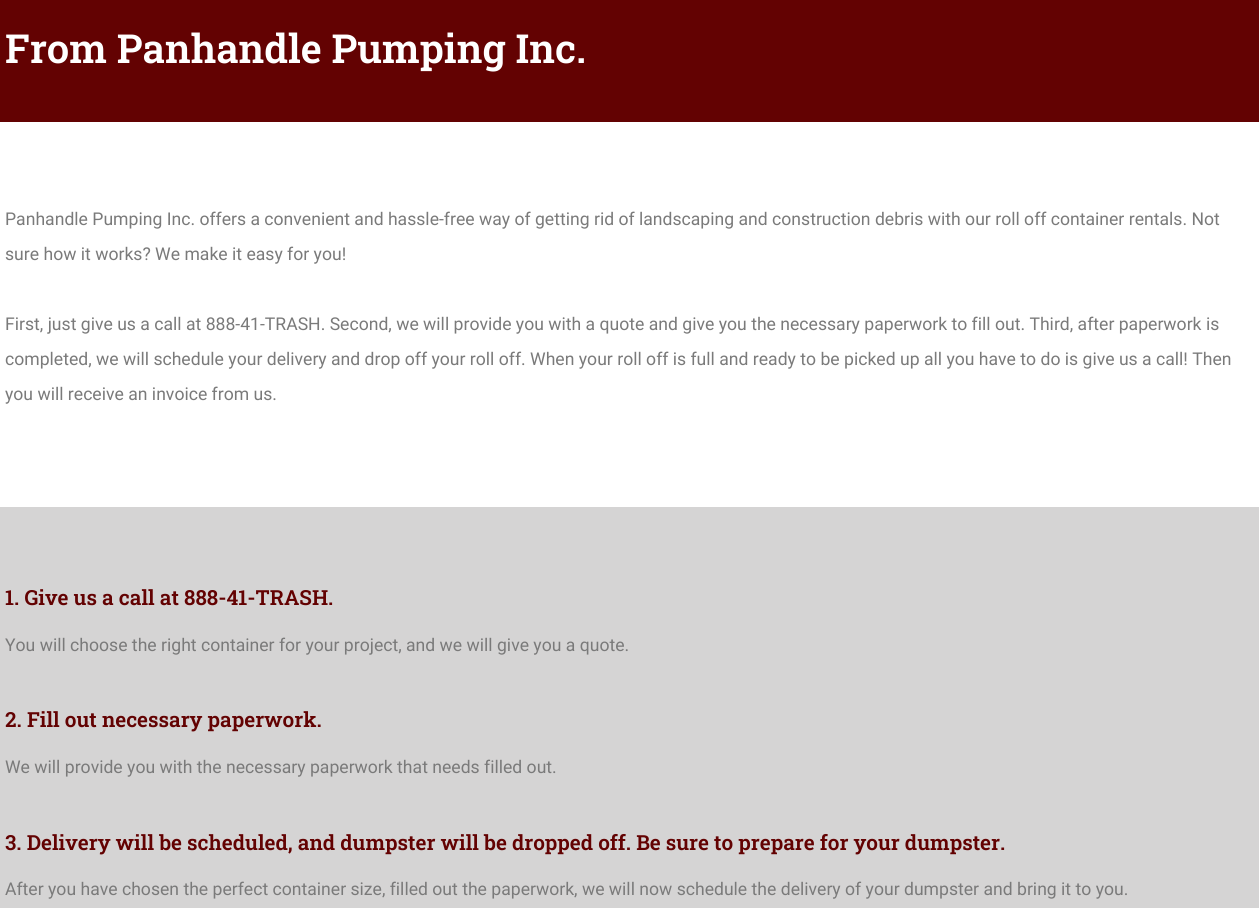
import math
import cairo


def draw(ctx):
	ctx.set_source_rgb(1, 1, 1)
	ctx.paint()
	ctx.set_source_rgb(0.388, 0.008, 0.008)
	ctx.rectangle(0, 0, 1259, 122)
	ctx.fill()
	ctx.select_font_face('Roboto Slab SemiBold')
	ctx.set_font_size(40)
	ctx.set_source_rgb(1, 1, 1)
	ctx.move_to(5, 63)
	ctx.show_text('From Panhandle Pumping Inc.')
	ctx.select_font_face('Roboto')
	ctx.set_font_size(17.6)
	ctx.set_source_rgb(0.478, 0.478, 0.478)
	for x, y, s in [
		(5, 225, 'Panhandle Pumping Inc. offers a convenient and hassle-free way of getting rid of landscaping and construction debris with our roll off container rentals. Not'),
		(5, 260, 'sure how it works? We make it easy for you!'),
		(5, 330, 'First, just give us a call at 888-41-TRASH. Second, we will provide you with a quote and give you the necessary paperwork to fill out. Third, after paperwork is'),
		(5, 365, 'completed, we will schedule your delivery and drop off your roll off. When your roll off is full and ready to be picked up all you have to do is give us a call! Then'),
		(5, 400, 'you will receive an invoice from us.'),
	]:
		ctx.move_to(x, y)
		ctx.show_text(s)
	ctx.set_source_rgb(0.835, 0.831, 0.831)
	ctx.rectangle(0, 507, 1259, 401)
	ctx.fill()
	ctx.select_font_face('Roboto Slab SemiBold')
	ctx.set_font_size(20.8)
	ctx.set_source_rgb(0.388, 0.008, 0.008)
	ctx.move_to(5, 605)
	ctx.show_text('1. Give us a call at 888-41-TRASH.')
	ctx.select_font_face('Roboto')
	ctx.set_font_size(17.6)
	ctx.set_source_rgb(0.478, 0.478, 0.478)
	ctx.move_to(5, 651)
	ctx.show_text('You will choose the right container for your project, and we will give you a quote.')
	ctx.select_font_face('Roboto Slab SemiBold')
	ctx.set_font_size(20.8)
	ctx.set_source_rgb(0.388, 0.008, 0.008)
	ctx.move_to(5, 727)
	ctx.show_text('2. Fill out necessary paperwork.')
	ctx.select_font_face('Roboto')
	ctx.set_font_size(17.6)
	ctx.set_source_rgb(0.478, 0.478, 0.478)
	ctx.move_to(5, 773)
	ctx.show_text('We will provide you with the necessary paperwork that needs filled out.')
	ctx.select_font_face('Roboto Slab SemiBold')
	ctx.set_font_size(20.8)
	ctx.set_source_rgb(0.388, 0.008, 0.008)
	ctx.move_to(5, 850)
	ctx.show_text('3. Delivery will be scheduled, and dumpster will be dropped off. Be sure to prepare for your dumpster.')
	ctx.select_font_face('Roboto')
	ctx.set_font_size(17.6)
	ctx.set_source_rgb(0.478, 0.478, 0.478)
	ctx.move_to(5, 895)
	ctx.show_text('After you have chosen the perfect container size, filled out the paperwork, we will now schedule the delivery of your dumpster and bring it to you.')


surface = cairo.ImageSurface(cairo.FORMAT_RGB24, 1259, 908)
ctx = cairo.Context(surface)
options = cairo.FontOptions()
options.set_hint_metrics(cairo.HINT_METRICS_OFF)
options.set_hint_style(cairo.HINT_STYLE_NONE)
ctx.set_font_options(options)
ctx.set_miter_limit(4)
draw(ctx)
surface.write_to_png('image.png')
